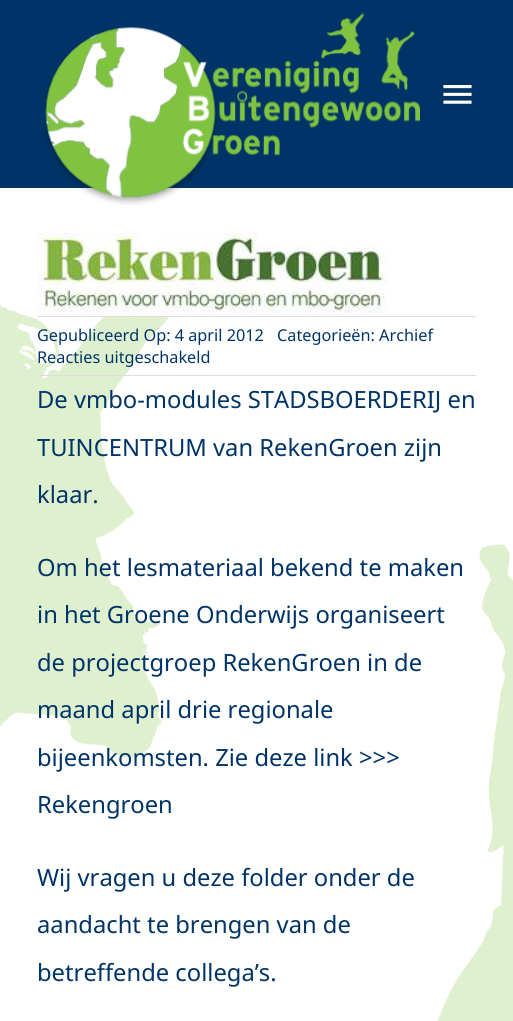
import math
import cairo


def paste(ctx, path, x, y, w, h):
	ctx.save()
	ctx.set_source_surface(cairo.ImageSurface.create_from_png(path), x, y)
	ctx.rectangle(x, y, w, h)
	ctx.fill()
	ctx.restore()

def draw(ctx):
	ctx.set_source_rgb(1, 1, 1)
	ctx.paint()
	ctx.set_source_rgb(0, 0.204, 0.408)
	ctx.rectangle(0, 0, 513, 188)
	ctx.fill()
	paste(ctx, 'media/1.png', 45, 12, 375, 193)
	paste(ctx, 'media/2.png', 443, 85, 29, 19)
	paste(ctx, 'media/3.png', 0, 305, 513, 716)
	paste(ctx, 'media/4.png', 37, 232, 350, 84)
	ctx.set_source_rgb(0.867, 0.867, 0.867)
	ctx.rectangle(38, 316, 438, 1)
	ctx.fill()
	ctx.rectangle(38, 375, 438, 1)
	ctx.fill()
	ctx.select_font_face('Noto Sans')
	ctx.set_font_size(16.25)
	ctx.set_source_rgb(0, 0.204, 0.408)
	for x, y, s in [
		(37, 341, 'Gepubliceerd Op: 4 april 2012'),
		(277, 341, 'Categorieën: Archief'),
		(37, 363, 'Reacties uitgeschakeld'),
	]:
		ctx.move_to(x, y)
		ctx.show_text(s)
	ctx.set_font_size(23.75)
	for x, y, s in [
		(37, 408, 'De vmbo-modules STADSBOERDERIJ en'),
		(37, 456, 'TUINCENTRUM van RekenGroen zijn'),
		(37, 503, 'klaar.'),
		(37, 576, 'Om het lesmateriaal bekend te maken'),
		(37, 623, 'in het Groene Onderwijs organiseert'),
		(37, 671, 'de projectgroep RekenGroen in de'),
		(37, 718, 'maand april drie regionale'),
		(37, 766, 'bijeenkomsten. Zie deze link >>>'),
		(37, 813, 'Rekengroen'),
		(37, 886, 'Wij vragen u deze folder onder de'),
		(37, 933, 'aandacht te brengen van de'),
		(37, 981, 'betreffende collega’s.'),
	]:
		ctx.move_to(x, y)
		ctx.show_text(s)


surface = cairo.ImageSurface(cairo.FORMAT_RGB24, 513, 1021)
ctx = cairo.Context(surface)
options = cairo.FontOptions()
options.set_hint_metrics(cairo.HINT_METRICS_OFF)
options.set_hint_style(cairo.HINT_STYLE_NONE)
ctx.set_font_options(options)
ctx.set_miter_limit(4)
draw(ctx)
surface.write_to_png('image.png')
